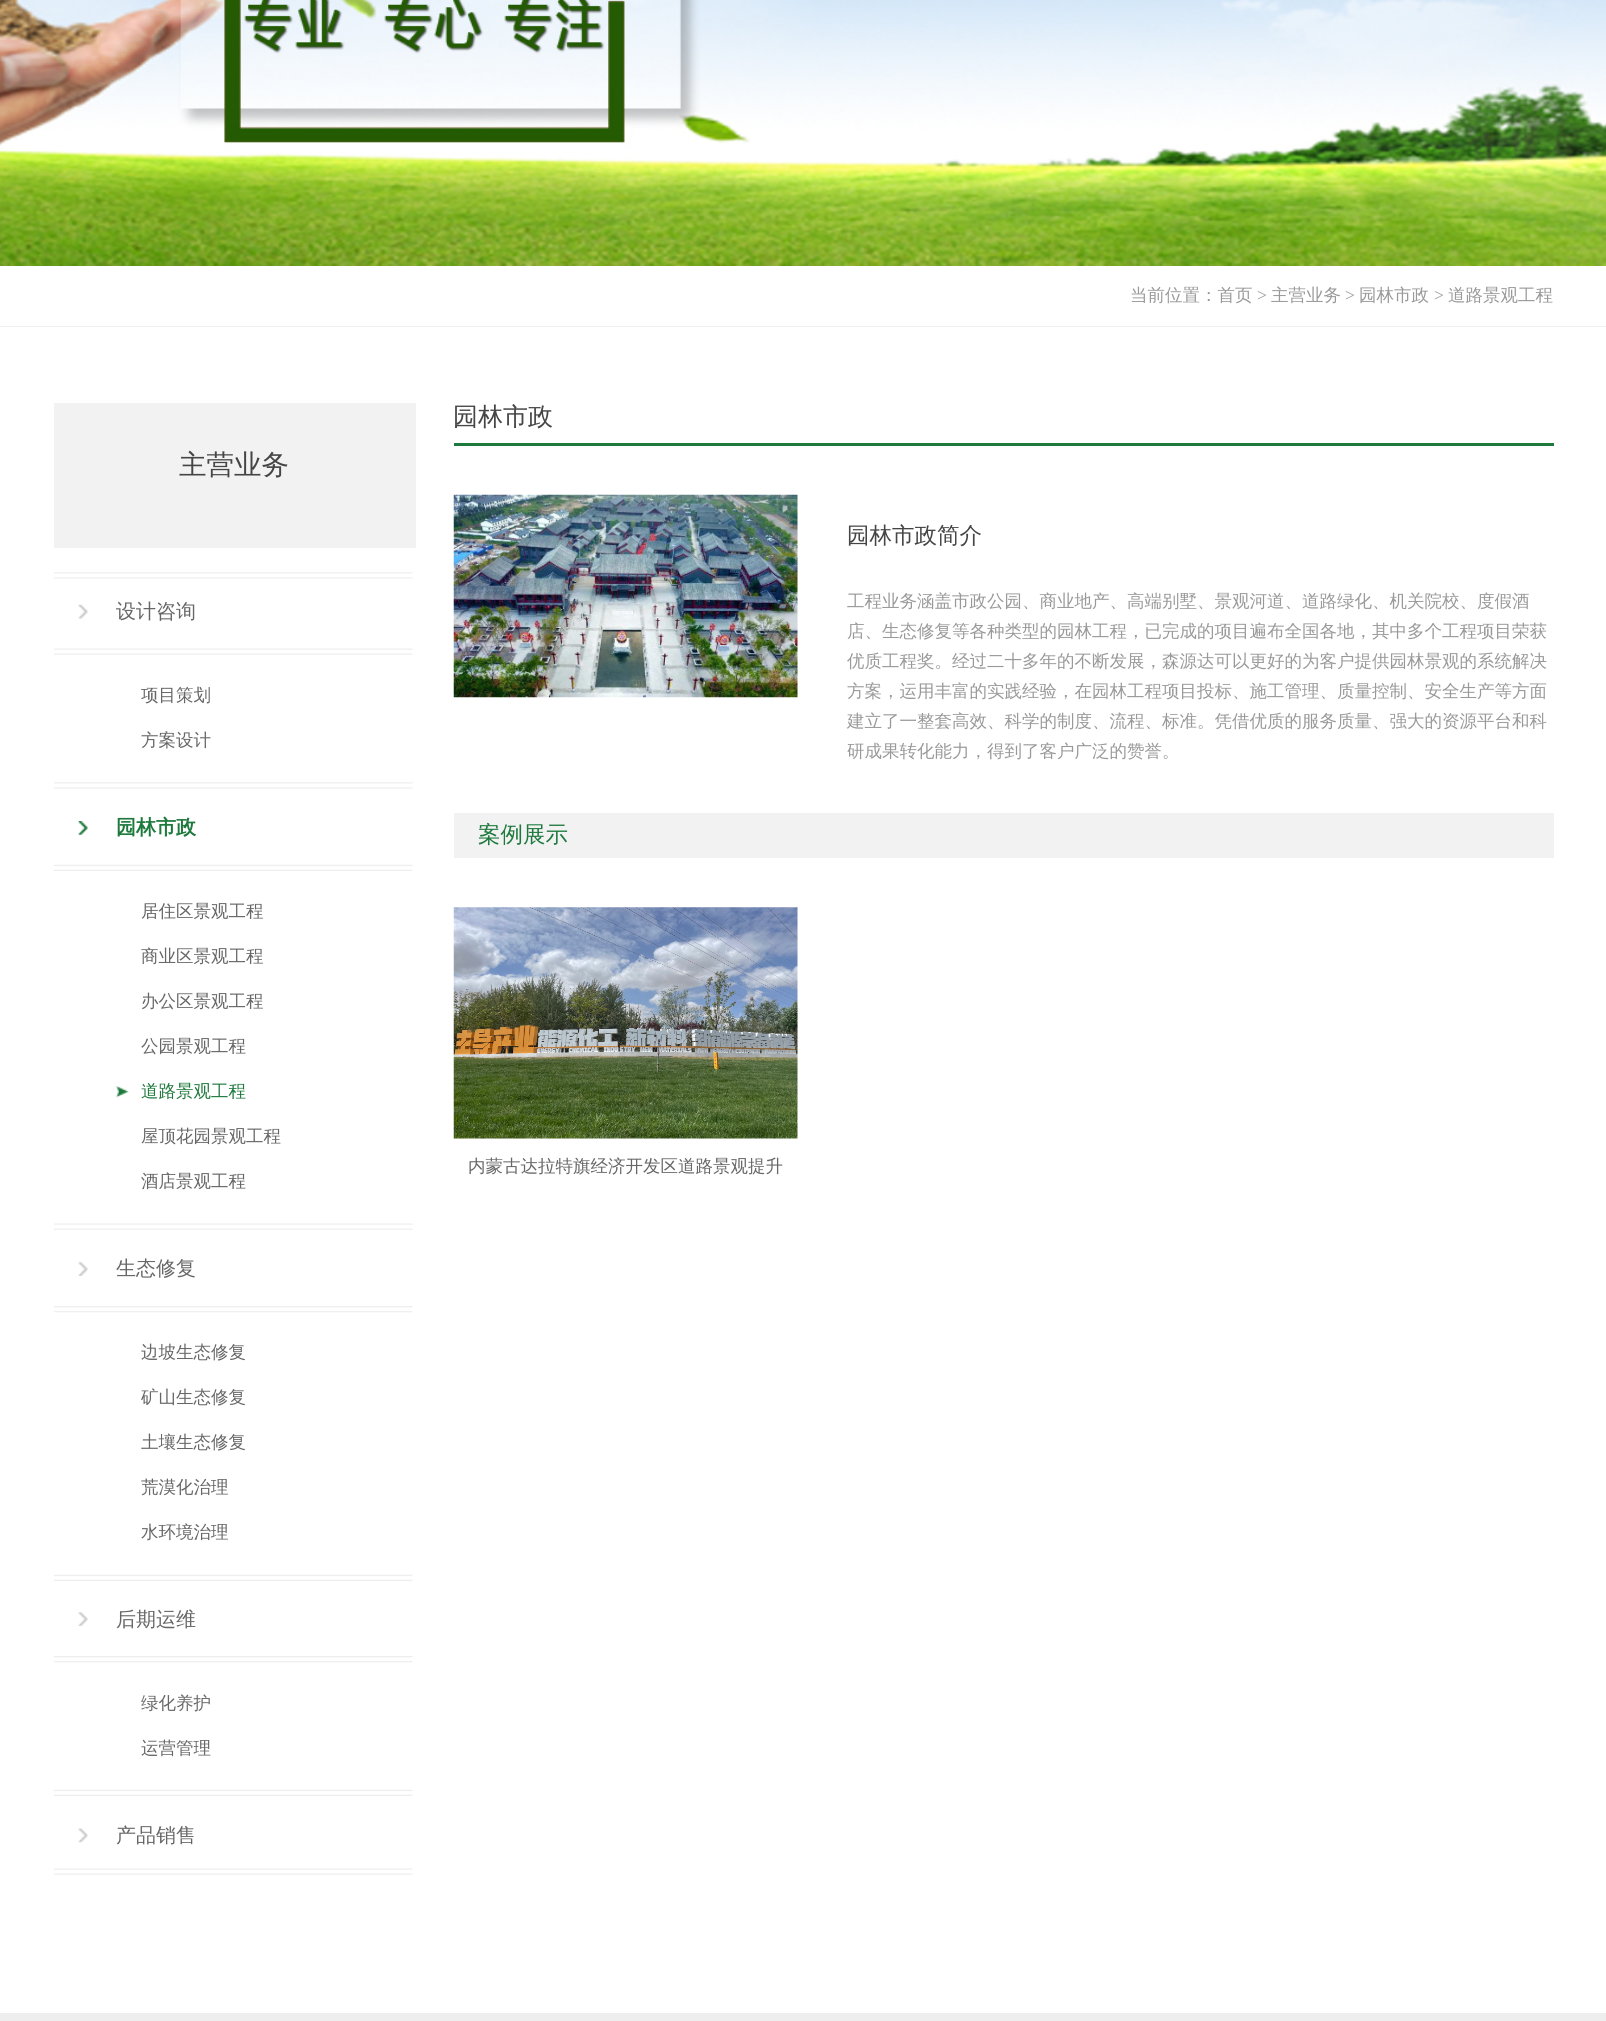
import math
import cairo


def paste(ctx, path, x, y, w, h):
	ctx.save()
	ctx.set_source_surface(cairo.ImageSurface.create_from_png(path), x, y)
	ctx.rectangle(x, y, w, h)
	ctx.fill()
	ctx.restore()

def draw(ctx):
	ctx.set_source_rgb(1, 1, 1)
	ctx.paint()
	paste(ctx, 'media/1.png', 0, 0, 1606, 266)
	ctx.set_source_rgb(0.933, 0.933, 0.933)
	ctx.rectangle(0, 326, 1606, 1)
	ctx.fill()
	ctx.select_font_face('WenQuanYi Zen Hei Medium')
	ctx.set_font_size(17.5)
	ctx.set_source_rgb(0.6, 0.6, 0.6)
	ctx.move_to(1130, 301)
	ctx.show_text('当前位置：首页')
	ctx.select_font_face('Liberation Serif')
	ctx.move_to(1257, 301)
	ctx.show_text('>')
	ctx.select_font_face('WenQuanYi Zen Hei Medium')
	ctx.move_to(1271, 301)
	ctx.show_text('主营业务')
	ctx.select_font_face('Liberation Serif')
	ctx.move_to(1345, 301)
	ctx.show_text('>')
	ctx.select_font_face('WenQuanYi Zen Hei Medium')
	ctx.move_to(1359, 301)
	ctx.show_text('园林市政')
	ctx.select_font_face('Liberation Serif')
	ctx.move_to(1434, 301)
	ctx.show_text('>')
	ctx.select_font_face('WenQuanYi Zen Hei Medium')
	ctx.move_to(1448, 301)
	ctx.show_text('道路景观工程')
	ctx.set_source_rgb(0.949, 0.949, 0.949)
	ctx.rectangle(54, 403, 362, 145)
	ctx.fill()
	ctx.set_font_size(27.5)
	ctx.set_source_rgb(0.271, 0.271, 0.271)
	ctx.move_to(179, 474)
	ctx.show_text('主营业务')
	paste(ctx, 'media/2.png', 54, 572, 359, 7)
	paste(ctx, 'media/2.png', 54, 782, 359, 7)
	paste(ctx, 'media/3.png', 78, 604, 10, 15)
	ctx.set_font_size(20)
	ctx.set_source_rgb(0.4, 0.4, 0.4)
	ctx.move_to(116, 618)
	ctx.show_text('设计咨询')
	paste(ctx, 'media/4.png', 54, 648, 359, 7)
	ctx.set_font_size(17.5)
	ctx.move_to(141, 701)
	ctx.show_text('项目策划')
	ctx.move_to(141, 746)
	ctx.show_text('方案设计')
	paste(ctx, 'media/4.png', 54, 1223, 359, 7)
	paste(ctx, 'media/5.png', 78, 821, 10, 14)
	ctx.select_font_face('WenQuanYi Zen Hei', cairo.FONT_SLANT_NORMAL, cairo.FONT_WEIGHT_BOLD)
	ctx.set_font_size(20)
	ctx.set_source_rgb(0.118, 0.475, 0.239)
	ctx.move_to(116, 834)
	ctx.show_text('园林市政')
	paste(ctx, 'media/6.png', 54, 864, 359, 7)
	ctx.select_font_face('WenQuanYi Zen Hei Medium')
	ctx.set_font_size(17.5)
	ctx.set_source_rgb(0.4, 0.4, 0.4)
	for x, y, s in [
		(141, 917, '居住区景观工程'),
		(141, 962, '商业区景观工程'),
		(141, 1007, '办公区景观工程'),
		(141, 1052, '公园景观工程'),
	]:
		ctx.move_to(x, y)
		ctx.show_text(s)
	paste(ctx, 'media/7.png', 116, 1086, 13, 12)
	ctx.set_source_rgb(0.118, 0.475, 0.239)
	ctx.move_to(141, 1097)
	ctx.show_text('道路景观工程')
	ctx.set_source_rgb(0.4, 0.4, 0.4)
	ctx.move_to(141, 1142)
	ctx.show_text('屋顶花园景观工程')
	ctx.move_to(141, 1187)
	ctx.show_text('酒店景观工程')
	paste(ctx, 'media/6.png', 54, 1574, 359, 7)
	paste(ctx, 'media/8.png', 78, 1262, 10, 14)
	ctx.set_font_size(20)
	ctx.move_to(116, 1275)
	ctx.show_text('生态修复')
	paste(ctx, 'media/9.png', 53, 1306, 360, 7)
	ctx.set_font_size(17.5)
	for x, y, s in [
		(141, 1358, '边坡生态修复'),
		(141, 1403, '矿山生态修复'),
		(141, 1448, '土壤生态修复'),
		(141, 1493, '荒漠化治理'),
		(141, 1538, '水环境治理'),
	]:
		ctx.move_to(x, y)
		ctx.show_text(s)
	paste(ctx, 'media/6.png', 54, 1789, 359, 7)
	paste(ctx, 'media/8.png', 78, 1612, 10, 14)
	ctx.set_font_size(20)
	ctx.move_to(116, 1626)
	ctx.show_text('后期运维')
	paste(ctx, 'media/9.png', 53, 1656, 360, 7)
	ctx.set_font_size(17.5)
	ctx.move_to(141, 1709)
	ctx.show_text('绿化养护')
	ctx.move_to(141, 1754)
	ctx.show_text('运营管理')
	paste(ctx, 'media/4.png', 54, 1868, 359, 7)
	paste(ctx, 'media/10.png', 78, 1828, 10, 15)
	ctx.set_font_size(20)
	ctx.move_to(116, 1842)
	ctx.show_text('产品销售')
	ctx.set_source_rgb(0.118, 0.475, 0.239)
	ctx.rectangle(454, 443, 1100, 3)
	ctx.fill()
	ctx.set_font_size(25)
	ctx.set_source_rgb(0.271, 0.271, 0.271)
	ctx.move_to(453, 425)
	ctx.show_text('园林市政')
	paste(ctx, 'media/11.png', 453, 494, 345, 204)
	ctx.set_font_size(22.5)
	ctx.move_to(847, 543)
	ctx.show_text('园林市政简介')
	ctx.set_font_size(17.5)
	ctx.set_source_rgb(0.6, 0.6, 0.6)
	for x, y, s in [
		(847, 607, '工程业务涵盖市政公园、商业地产、高端别墅、景观河道、道路绿化、机关院校、度假酒'),
		(847, 637, '店、生态修复等各种类型的园林工程，已完成的项目遍布全国各地，其中多个工程项目荣获'),
		(847, 667, '优质工程奖。经过二十多年的不断发展，森源达可以更好的为客户提供园林景观的系统解决'),
		(847, 697, '方案，运用丰富的实践经验，在园林工程项目投标、施工管理、质量控制、安全生产等方面'),
		(847, 727, '建立了一整套高效、科学的制度、流程、标准。凭借优质的服务质量、强大的资源平台和科'),
		(847, 757, '研成果转化能力，得到了客户广泛的赞誉。'),
	]:
		ctx.move_to(x, y)
		ctx.show_text(s)
	ctx.set_source_rgb(0.949, 0.949, 0.949)
	ctx.rectangle(454, 813, 1100, 45)
	ctx.fill()
	ctx.set_font_size(22.5)
	ctx.set_source_rgb(0.118, 0.475, 0.239)
	ctx.move_to(478, 842)
	ctx.show_text('案例展示')
	paste(ctx, 'media/12.png', 453, 907, 345, 232)
	ctx.set_font_size(17.5)
	ctx.set_source_rgb(0.4, 0.4, 0.4)
	ctx.move_to(468, 1172)
	ctx.show_text('内蒙古达拉特旗经济开发区道路景观提升')
	ctx.set_source_rgb(0.933, 0.933, 0.933)
	ctx.rectangle(0, 2013, 1606, 8)
	ctx.fill()


surface = cairo.ImageSurface(cairo.FORMAT_RGB24, 1606, 2021)
ctx = cairo.Context(surface)
options = cairo.FontOptions()
options.set_hint_metrics(cairo.HINT_METRICS_OFF)
options.set_hint_style(cairo.HINT_STYLE_NONE)
ctx.set_font_options(options)
ctx.set_miter_limit(4)
draw(ctx)
surface.write_to_png('image.png')
